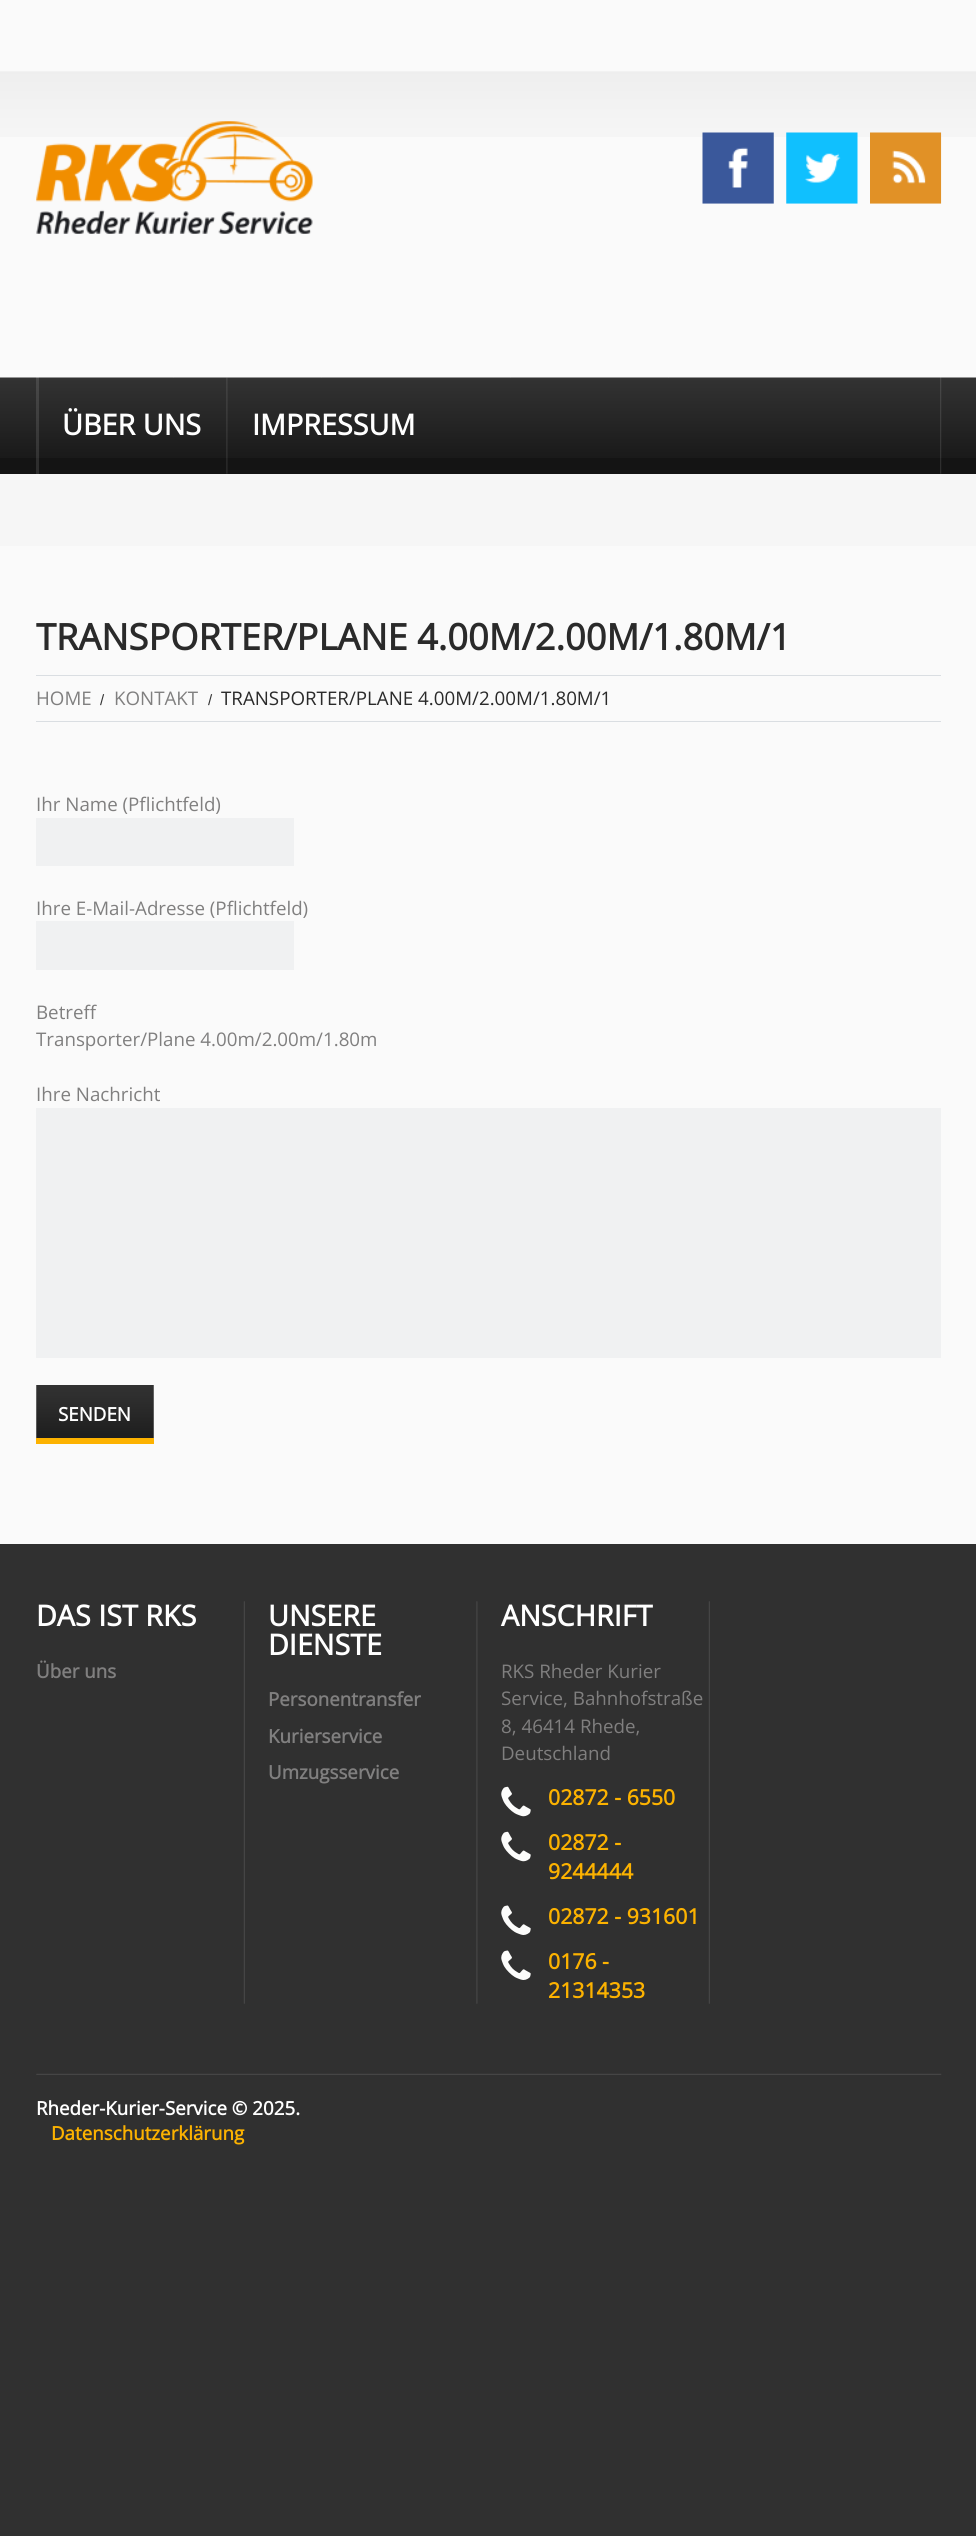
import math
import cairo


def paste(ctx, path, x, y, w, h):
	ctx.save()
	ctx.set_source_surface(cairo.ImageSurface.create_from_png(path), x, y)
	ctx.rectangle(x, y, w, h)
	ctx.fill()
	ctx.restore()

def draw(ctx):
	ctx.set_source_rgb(0.188, 0.188, 0.188)
	ctx.paint()
	ctx.set_source_rgb(0.98, 0.98, 0.98)
	ctx.rectangle(0, 0, 976, 378)
	ctx.fill()
	paste(ctx, 'media/1.png', 0, 71, 976, 66)
	ctx.set_source_rgb(0.082, 0.082, 0.082)
	ctx.rectangle(0, 458, 976, 16)
	ctx.fill()
	paste(ctx, 'media/2.png', 0, 377, 976, 81)
	paste(ctx, 'media/3.png', 36, 121, 277, 113)
	paste(ctx, 'media/4.png', 702, 132, 72, 72)
	paste(ctx, 'media/5.png', 786, 132, 72, 72)
	paste(ctx, 'media/6.png', 870, 132, 72, 72)
	paste(ctx, 'media/7.png', 940, 377, 2, 97)
	paste(ctx, 'media/8.png', 36, 377, 3, 1)
	ctx.set_source_rgb(0.604, 0.604, 0.604)
	ctx.rectangle(173, 377, 1, 1)
	ctx.rectangle(321, 377, 1, 1)
	ctx.fill()
	ctx.set_source_rgb(0.608, 0.608, 0.608)
	ctx.rectangle(510, 377, 1, 1)
	ctx.fill()
	ctx.set_source_rgb(0.604, 0.604, 0.604)
	ctx.rectangle(668, 377, 1, 1)
	ctx.fill()
	ctx.set_source_rgba(1, 1, 1, 0.11)
	ctx.rectangle(36, 377, 3, 97)
	ctx.fill()
	ctx.select_font_face('Open Sans', cairo.FONT_SLANT_NORMAL, cairo.FONT_WEIGHT_BOLD)
	ctx.set_font_size(28.75)
	ctx.set_source_rgb(1, 1, 1)
	ctx.move_to(62, 435)
	ctx.show_text('ÜBER UNS')
	paste(ctx, 'media/9.png', 226, 377, 2, 97)
	ctx.move_to(252, 435)
	ctx.show_text('IMPRESSUM')
	ctx.set_source_rgb(0.98, 0.98, 0.98)
	ctx.rectangle(0, 546, 976, 998)
	ctx.fill()
	ctx.set_source_rgb(0.961, 0.961, 0.961)
	ctx.rectangle(0, 474, 976, 72)
	ctx.fill()
	ctx.set_font_size(36.25)
	ctx.set_source_rgb(0.165, 0.165, 0.165)
	ctx.move_to(36, 650)
	ctx.show_text('TRANSPORTER/PLANE 4.00M/2.00M/1.80M/1')
	ctx.set_source_rgb(0.855, 0.871, 0.886)
	ctx.rectangle(36, 675, 905, 1)
	ctx.fill()
	ctx.rectangle(36, 721, 905, 1)
	ctx.fill()
	ctx.select_font_face('Open Sans')
	ctx.set_font_size(18.75)
	ctx.set_source_rgb(0.502, 0.498, 0.498)
	ctx.move_to(36, 705)
	ctx.show_text('HOME')
	ctx.select_font_face('Liberation Sans')
	ctx.set_font_size(15)
	ctx.set_source_rgb(0.2, 0.2, 0.2)
	ctx.move_to(100, 705)
	ctx.show_text('/')
	ctx.select_font_face('Open Sans')
	ctx.set_font_size(18.75)
	ctx.set_source_rgb(0.502, 0.498, 0.498)
	ctx.move_to(114, 705)
	ctx.show_text('KONTAKT')
	ctx.select_font_face('Liberation Sans')
	ctx.set_font_size(15)
	ctx.set_source_rgb(0.2, 0.2, 0.2)
	ctx.move_to(208, 705)
	ctx.show_text('/')
	ctx.select_font_face('Open Sans')
	ctx.set_font_size(18.75)
	ctx.set_source_rgb(0.165, 0.165, 0.165)
	ctx.move_to(221, 705)
	ctx.show_text('TRANSPORTER/PLANE 4.00M/2.00M/1.80M/1')
	ctx.set_source_rgb(0.502, 0.498, 0.498)
	ctx.move_to(36, 811)
	ctx.show_text('Ihr Name (Pflichtfeld)')
	ctx.set_source_rgb(0.941, 0.945, 0.949)
	ctx.rectangle(36, 818, 258, 48)
	ctx.fill()
	ctx.set_source_rgb(0.502, 0.498, 0.498)
	ctx.move_to(36, 915)
	ctx.show_text('Ihre E-Mail-Adresse (Pflichtfeld)')
	ctx.set_source_rgb(0.941, 0.945, 0.949)
	ctx.rectangle(36, 921, 258, 49)
	ctx.fill()
	ctx.set_source_rgb(0.502, 0.498, 0.498)
	for x, y, s in [
		(36, 1019, 'Betreff'),
		(36, 1046, 'Transporter/Plane 4.00m/2.00m/1.80m'),
		(36, 1101, 'Ihre Nachricht'),
	]:
		ctx.move_to(x, y)
		ctx.show_text(s)
	ctx.set_source_rgb(0.941, 0.945, 0.949)
	ctx.rectangle(36, 1108, 905, 250)
	ctx.fill()
	paste(ctx, 'media/10.png', 36, 1385, 118, 53)
	ctx.set_source_rgb(0.988, 0.698, 0)
	ctx.rectangle(36, 1438, 118, 6)
	ctx.fill()
	ctx.select_font_face('Open Sans', cairo.FONT_SLANT_NORMAL, cairo.FONT_WEIGHT_BOLD)
	ctx.set_source_rgb(1, 1, 1)
	ctx.move_to(58, 1421)
	ctx.show_text('SENDEN')
	paste(ctx, 'media/11.png', 243, 1601, 2, 403)
	paste(ctx, 'media/12.png', 476, 1601, 2, 403)
	paste(ctx, 'media/11.png', 708, 1601, 2, 403)
	ctx.set_font_size(28.75)
	ctx.move_to(36, 1626)
	ctx.show_text('DAS IST RKS')
	ctx.set_font_size(18.75)
	ctx.set_source_rgb(0.502, 0.498, 0.498)
	ctx.move_to(36, 1678)
	ctx.show_text('Über uns')
	ctx.set_font_size(28.75)
	ctx.set_source_rgb(1, 1, 1)
	ctx.move_to(268, 1626)
	ctx.show_text('UNSERE')
	ctx.move_to(268, 1655)
	ctx.show_text('DIENSTE')
	ctx.set_font_size(18.75)
	ctx.set_source_rgb(0.502, 0.498, 0.498)
	for x, y, s in [
		(268, 1706, 'Personentransfer'),
		(268, 1743, 'Kurierservice'),
		(268, 1779, 'Umzugsservice'),
	]:
		ctx.move_to(x, y)
		ctx.show_text(s)
	ctx.set_font_size(28.75)
	ctx.set_source_rgb(1, 1, 1)
	ctx.move_to(501, 1626)
	ctx.show_text('ANSCHRIFT')
	ctx.select_font_face('Open Sans')
	ctx.set_font_size(18.75)
	ctx.set_source_rgb(0.502, 0.498, 0.498)
	for x, y, s in [
		(501, 1678, 'RKS Rheder Kurier'),
		(501, 1705, 'Service, Bahnhofstraße'),
		(501, 1733, '8, 46414 Rhede,'),
		(501, 1760, 'Deutschland'),
	]:
		ctx.move_to(x, y)
		ctx.show_text(s)
	paste(ctx, 'media/13.png', 501, 1786, 30, 31)
	ctx.select_font_face('Open Sans', cairo.FONT_SLANT_NORMAL, cairo.FONT_WEIGHT_BOLD)
	ctx.set_font_size(21.25)
	ctx.set_source_rgb(0.988, 0.698, 0)
	ctx.move_to(548, 1805)
	ctx.show_text('02872 - 6550')
	paste(ctx, 'media/13.png', 501, 1831, 30, 31)
	ctx.move_to(548, 1850)
	ctx.show_text('02872 -')
	ctx.move_to(548, 1879)
	ctx.show_text('9244444')
	paste(ctx, 'media/14.png', 501, 1905, 30, 30)
	ctx.move_to(548, 1924)
	ctx.show_text('02872 - 931601')
	paste(ctx, 'media/14.png', 501, 1950, 30, 30)
	ctx.move_to(548, 1969)
	ctx.show_text('0176 -')
	ctx.move_to(548, 1998)
	ctx.show_text('21314353')
	paste(ctx, 'media/15.png', 36, 2073, 906, 2)
	ctx.set_font_size(18.75)
	ctx.set_source_rgb(1, 1, 1)
	ctx.move_to(36, 2115)
	ctx.show_text('Rheder-Kurier-Service © 2025.')
	ctx.set_source_rgb(0.988, 0.698, 0)
	ctx.move_to(51, 2140)
	ctx.show_text('Datenschutzerklärung')


surface = cairo.ImageSurface(cairo.FORMAT_RGB24, 976, 2536)
ctx = cairo.Context(surface)
options = cairo.FontOptions()
options.set_hint_metrics(cairo.HINT_METRICS_OFF)
options.set_hint_style(cairo.HINT_STYLE_NONE)
ctx.set_font_options(options)
ctx.set_miter_limit(4)
draw(ctx)
surface.write_to_png('image.png')
